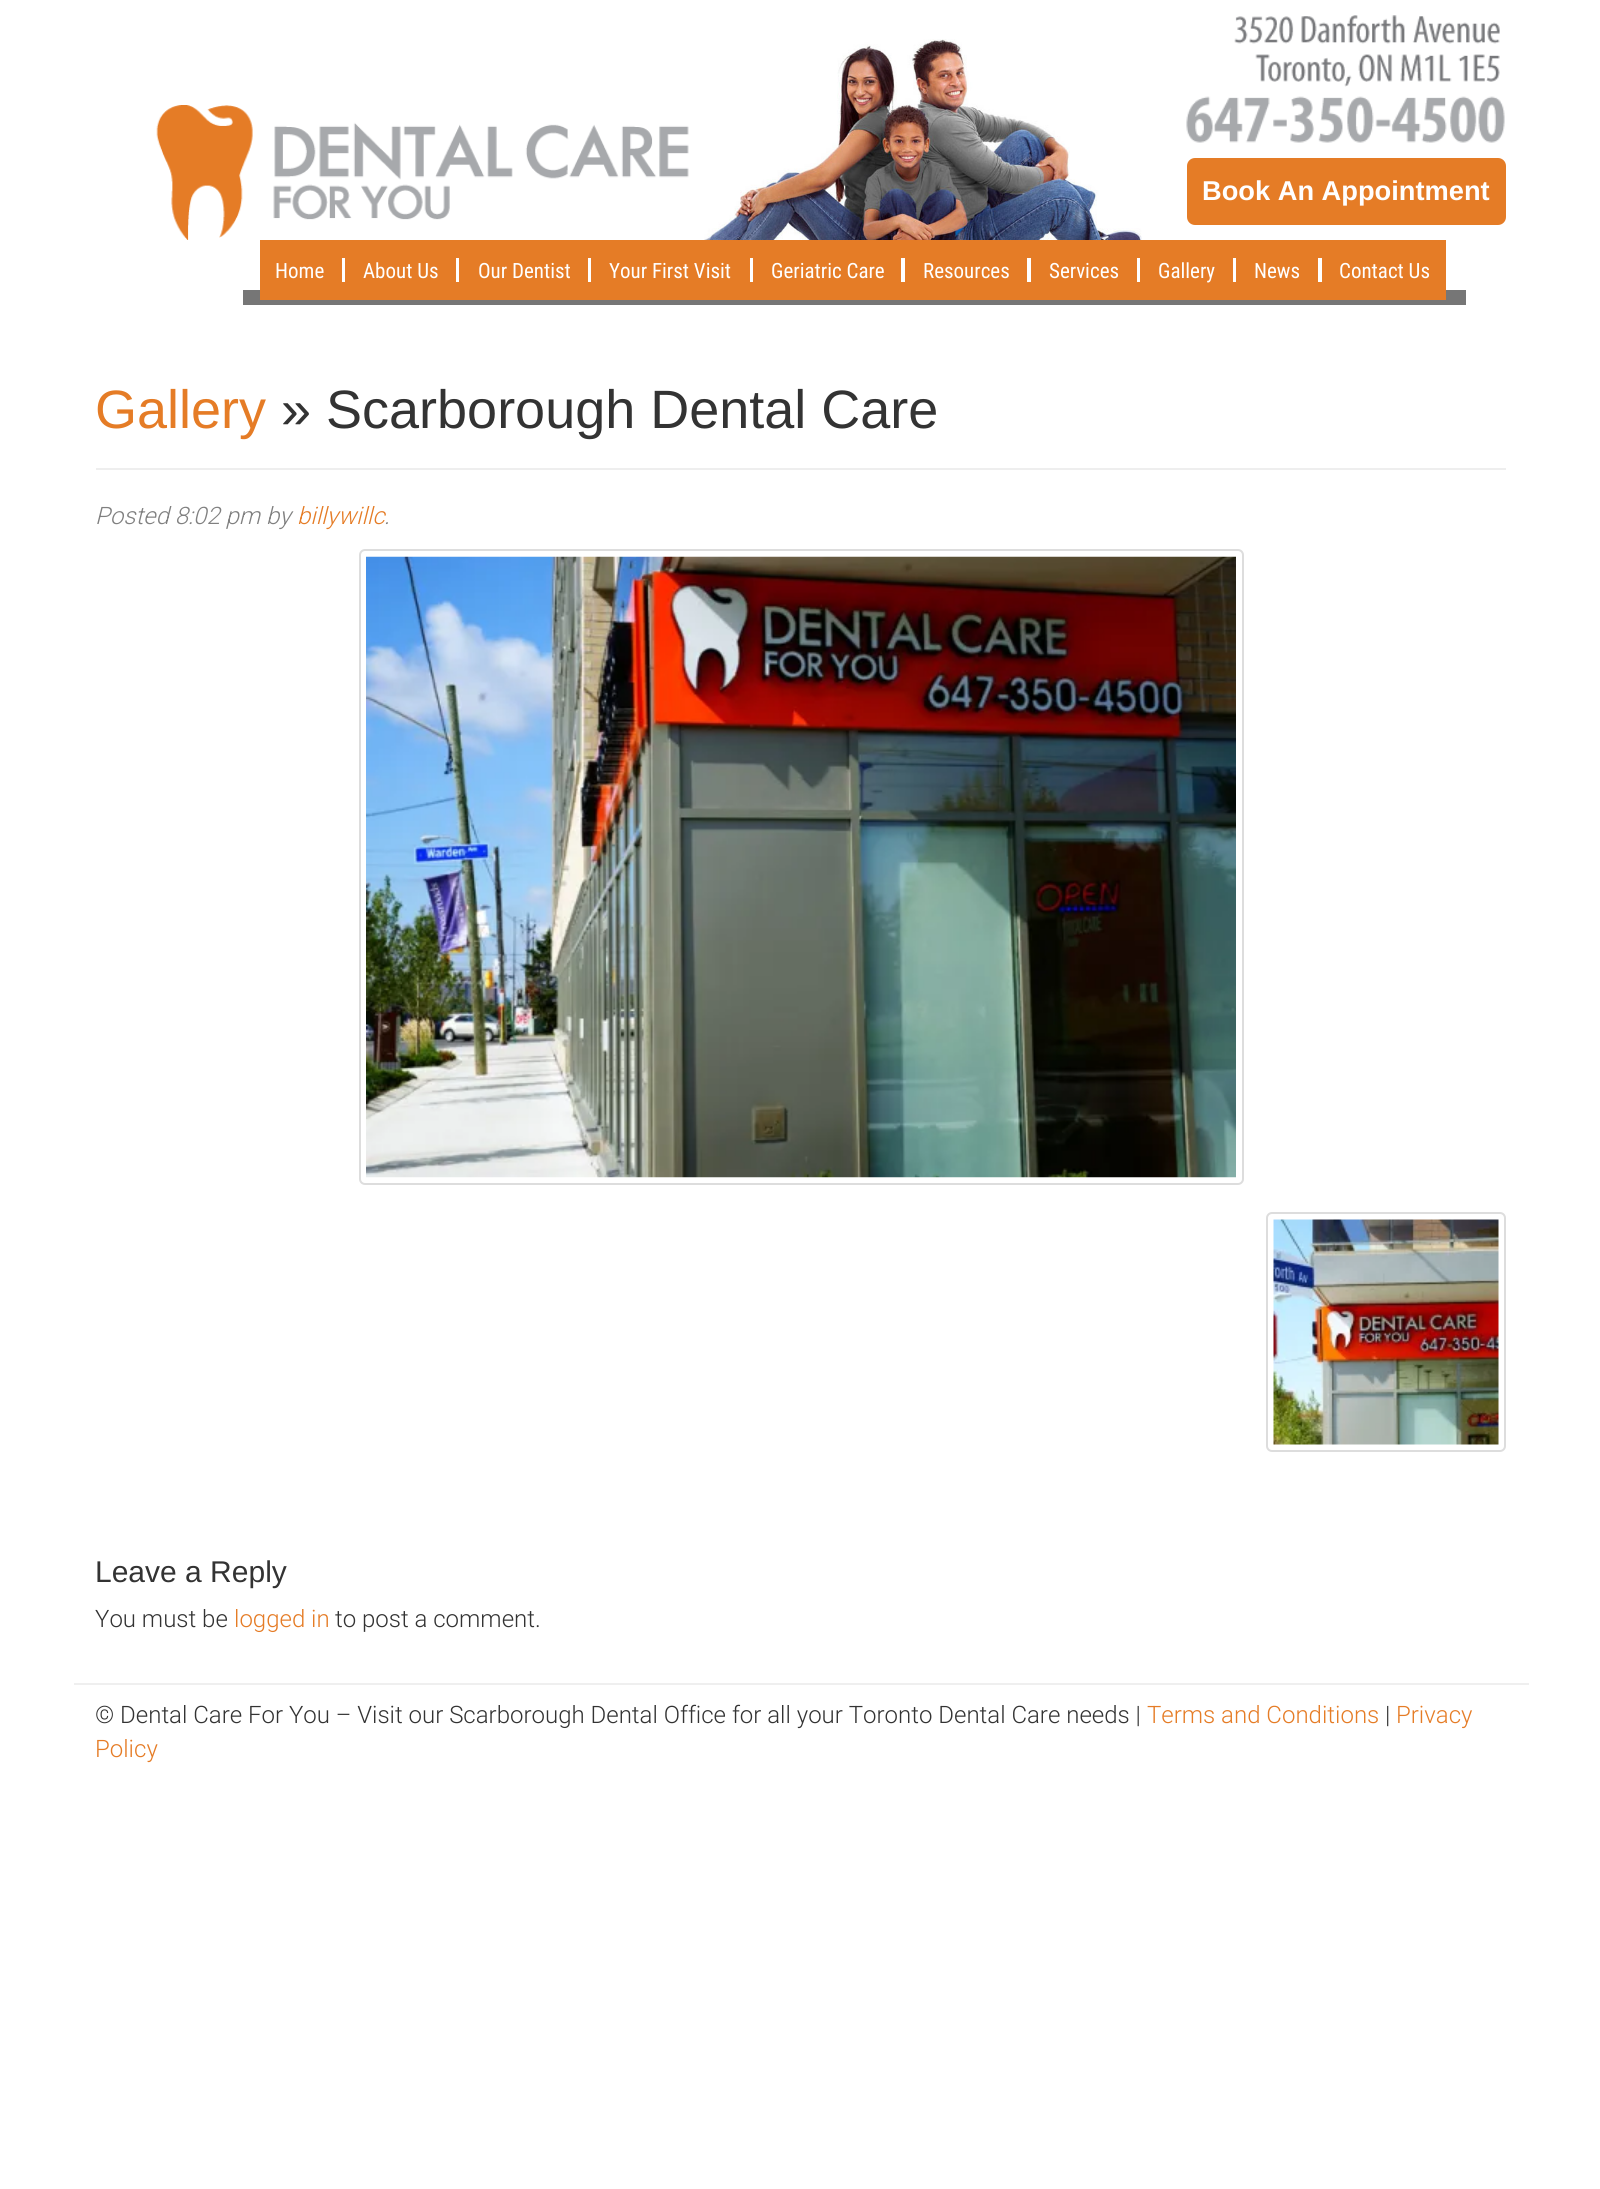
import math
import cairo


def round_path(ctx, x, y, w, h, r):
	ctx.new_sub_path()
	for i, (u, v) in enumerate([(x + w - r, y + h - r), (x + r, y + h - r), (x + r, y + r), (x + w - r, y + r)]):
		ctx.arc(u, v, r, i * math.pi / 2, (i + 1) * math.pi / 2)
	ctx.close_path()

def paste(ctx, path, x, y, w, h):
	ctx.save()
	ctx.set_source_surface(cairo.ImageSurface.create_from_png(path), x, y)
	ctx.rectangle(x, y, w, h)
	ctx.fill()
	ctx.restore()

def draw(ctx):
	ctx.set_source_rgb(1, 1, 1)
	ctx.paint()
	paste(ctx, 'media/1.png', 156, 105, 533, 135)
	paste(ctx, 'media/2.png', 704, 39, 438, 201)
	paste(ctx, 'media/3.png', 1186, 15, 319, 128)
	ctx.set_source_rgb(0.898, 0.486, 0.149)
	round_path(ctx, 1187, 158, 319, 67, 8)
	ctx.fill()
	ctx.select_font_face('Liberation Sans', cairo.FONT_SLANT_NORMAL, cairo.FONT_WEIGHT_BOLD)
	ctx.set_font_size(27.25)
	ctx.set_source_rgb(1, 1, 1)
	ctx.move_to(1202, 200)
	ctx.show_text('Book An Appointment')
	ctx.set_source_rgb(0.463, 0.463, 0.463)
	ctx.rectangle(243, 290, 1223, 15)
	ctx.fill()
	ctx.set_source_rgb(0.898, 0.486, 0.149)
	ctx.rectangle(260, 240, 1186, 60)
	ctx.fill()
	ctx.select_font_face('Roboto Condensed')
	ctx.set_font_size(21)
	ctx.set_source_rgb(1, 1, 1)
	ctx.move_to(275, 278)
	ctx.show_text('Home')
	ctx.rectangle(342, 258, 3, 24)
	ctx.fill()
	ctx.move_to(363, 278)
	ctx.show_text('About Us')
	ctx.rectangle(456, 258, 3, 24)
	ctx.fill()
	ctx.move_to(478, 278)
	ctx.show_text('Our Dentist')
	ctx.rectangle(588, 258, 3, 24)
	ctx.fill()
	ctx.move_to(609, 278)
	ctx.show_text('Your First Visit')
	ctx.rectangle(750, 258, 3, 24)
	ctx.fill()
	ctx.move_to(771, 278)
	ctx.show_text('Geriatric Care')
	ctx.rectangle(901, 258, 4, 24)
	ctx.fill()
	ctx.move_to(923, 278)
	ctx.show_text('Resources')
	ctx.rectangle(1027, 258, 4, 24)
	ctx.fill()
	ctx.move_to(1049, 278)
	ctx.show_text('Services')
	ctx.rectangle(1137, 258, 3, 24)
	ctx.fill()
	ctx.move_to(1158, 278)
	ctx.show_text('Gallery')
	ctx.rectangle(1233, 258, 3, 24)
	ctx.fill()
	ctx.move_to(1254, 278)
	ctx.show_text('News')
	ctx.rectangle(1318, 258, 4, 24)
	ctx.fill()
	ctx.move_to(1339, 278)
	ctx.show_text('Contact Us')
	ctx.set_source_rgb(0.933, 0.933, 0.933)
	ctx.rectangle(96, 468, 1410, 2)
	ctx.fill()
	ctx.select_font_face('Liberation Sans')
	ctx.set_font_size(54)
	ctx.set_source_rgb(0.898, 0.486, 0.149)
	ctx.move_to(95, 428)
	ctx.show_text('Gallery')
	ctx.set_source_rgb(0.2, 0.2, 0.2)
	ctx.move_to(281, 428)
	ctx.show_text('» Scarborough Dental Care')
	ctx.select_font_face('Roboto Light', cairo.FONT_SLANT_ITALIC)
	ctx.set_font_size(24)
	ctx.set_source_rgb(0.502, 0.502, 0.502)
	ctx.move_to(95, 524)
	ctx.show_text('Posted 8:02 pm by')
	ctx.set_source_rgb(0.898, 0.486, 0.149)
	ctx.move_to(297, 524)
	ctx.show_text('billywillc')
	ctx.set_source_rgb(0.502, 0.502, 0.502)
	ctx.move_to(384, 524)
	ctx.show_text('.')
	round_path(ctx, 360, 550, 883, 634, 5)
	ctx.set_source_rgb(0.867, 0.867, 0.867)
	ctx.stroke()
	paste(ctx, 'media/4.png', 366, 556, 870, 622)
	round_path(ctx, 1267, 1213, 238, 238, 5)
	ctx.stroke()
	paste(ctx, 'media/5.png', 1273, 1219, 226, 226)
	ctx.select_font_face('Liberation Sans')
	ctx.set_font_size(30)
	ctx.set_source_rgb(0.2, 0.2, 0.2)
	ctx.move_to(95, 1582)
	ctx.show_text('Leave a Reply')
	ctx.select_font_face('Roboto Light')
	ctx.set_font_size(24)
	ctx.move_to(95, 1627)
	ctx.show_text('You must be')
	ctx.set_source_rgb(0.898, 0.486, 0.149)
	ctx.move_to(234, 1627)
	ctx.show_text('logged in')
	ctx.set_source_rgb(0.2, 0.2, 0.2)
	ctx.move_to(335, 1627)
	ctx.show_text('to post a comment.')
	ctx.set_source_rgb(0.937, 0.937, 0.937)
	ctx.rectangle(74, 1683, 1455, 2)
	ctx.fill()
	ctx.set_source_rgb(0.2, 0.2, 0.2)
	ctx.move_to(95, 1723)
	ctx.show_text('© Dental Care For You – Visit our Scarborough Dental Office for all your Toronto Dental Care needs |')
	ctx.set_source_rgb(0.898, 0.486, 0.149)
	ctx.move_to(1147, 1723)
	ctx.show_text('Terms and Conditions')
	ctx.set_source_rgb(0.2, 0.2, 0.2)
	ctx.move_to(1385, 1723)
	ctx.show_text('|')
	ctx.set_source_rgb(0.898, 0.486, 0.149)
	ctx.move_to(1396, 1723)
	ctx.show_text('Privacy')
	ctx.move_to(95, 1757)
	ctx.show_text('Policy')


surface = cairo.ImageSurface(cairo.FORMAT_RGB24, 1600, 2189)
ctx = cairo.Context(surface)
options = cairo.FontOptions()
options.set_hint_metrics(cairo.HINT_METRICS_OFF)
options.set_hint_style(cairo.HINT_STYLE_NONE)
ctx.set_font_options(options)
ctx.set_miter_limit(4)
draw(ctx)
surface.write_to_png('image.png')
